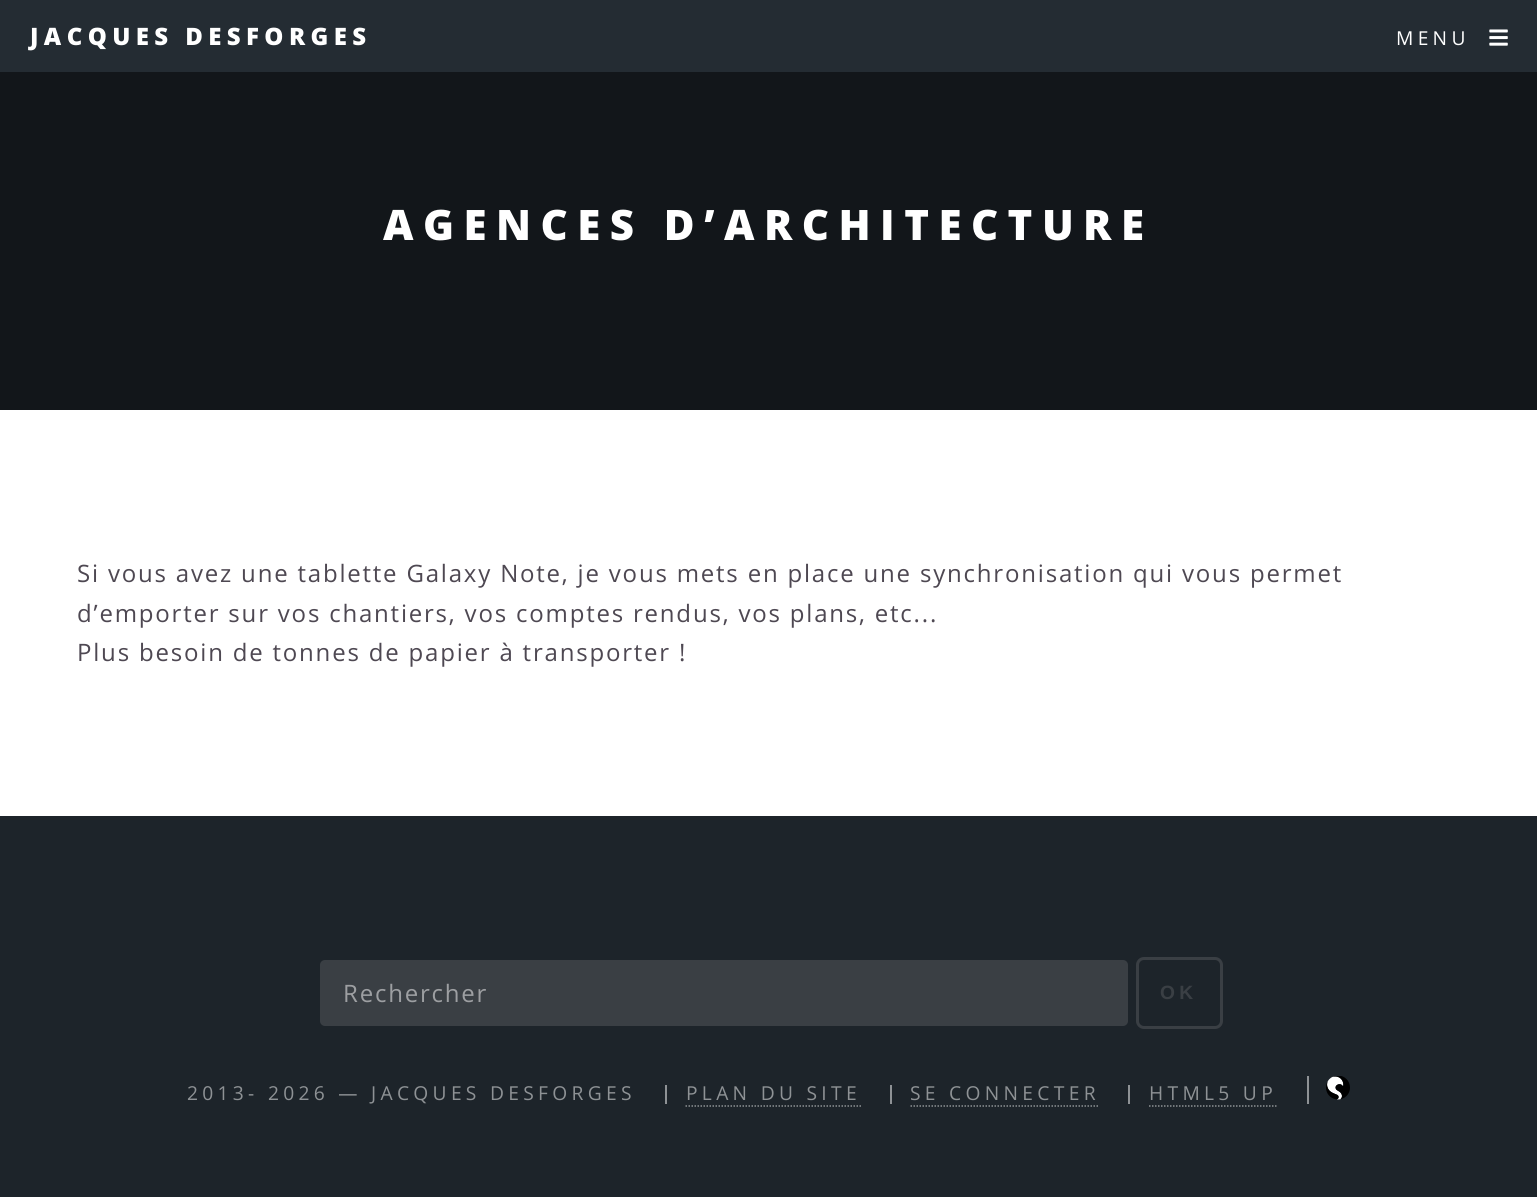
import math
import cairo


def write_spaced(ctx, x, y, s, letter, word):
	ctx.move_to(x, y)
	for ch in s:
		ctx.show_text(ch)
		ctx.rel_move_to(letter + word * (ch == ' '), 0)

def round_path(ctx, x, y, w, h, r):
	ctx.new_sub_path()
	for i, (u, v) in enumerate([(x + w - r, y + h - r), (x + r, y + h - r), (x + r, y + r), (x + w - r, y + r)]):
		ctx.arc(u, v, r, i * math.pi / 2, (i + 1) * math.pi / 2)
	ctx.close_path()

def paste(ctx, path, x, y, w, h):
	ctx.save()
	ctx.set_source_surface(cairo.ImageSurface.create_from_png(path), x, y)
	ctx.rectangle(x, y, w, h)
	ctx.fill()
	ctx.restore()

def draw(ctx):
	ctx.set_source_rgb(0.071, 0.086, 0.102)
	ctx.paint()
	ctx.set_source_rgb(0.141, 0.173, 0.2)
	ctx.rectangle(0, 0, 1537, 72)
	ctx.fill()
	ctx.select_font_face('Open Sans ExtraBold')
	ctx.set_font_size(24)
	ctx.set_source_rgb(1, 1, 1)
	write_spaced(ctx, 30, 45, 'JACQUES DESFORGES', 5.4, 0)
	ctx.select_font_face('Open Sans')
	ctx.set_font_size(19.2)
	write_spaced(ctx, 1396, 45, 'MENU', 4.3, 0)
	paste(ctx, 'media/1.png', 1489, 29, 19, 17)
	ctx.select_font_face('Open Sans ExtraBold')
	ctx.set_font_size(42)
	write_spaced(ctx, 383, 240, 'AGENCES D’ARCHITECTURE', 9.45, 0)
	ctx.rectangle(0, 410, 1537, 406)
	ctx.fill()
	ctx.select_font_face('Open Sans')
	ctx.set_font_size(24)
	ctx.set_source_rgb(0.306, 0.282, 0.322)
	for x, y, s in [
		(77, 582, 'Si vous avez une tablette Galaxy Note, je vous mets en place une synchronisation qui vous permet'),
		(77, 622, 'd’emporter sur vos chantiers, vos comptes rendus, vos plans, etc...'),
		(77, 661, 'Plus besoin de tonnes de papier à transporter !'),
	]:
		write_spaced(ctx, x, y, s, 1.8, 0)
	ctx.set_source_rgb(0.114, 0.141, 0.165)
	ctx.rectangle(0, 816, 1537, 381)
	ctx.fill()
	ctx.set_source_rgb(0.227, 0.247, 0.267)
	round_path(ctx, 320, 960, 808, 66, 5)
	ctx.fill()
	ctx.set_source_rgb(0.616, 0.624, 0.635)
	write_spaced(ctx, 343, 1002, 'Rechercher', 1.8, 0)
	round_path(ctx, 1137.5, 958.5, 84, 69, 6.5)
	ctx.set_source_rgb(0.227, 0.247, 0.267)
	ctx.set_line_width(3)
	ctx.stroke()
	ctx.select_font_face('Liberation Sans', cairo.FONT_SLANT_NORMAL, cairo.FONT_WEIGHT_BOLD)
	ctx.set_font_size(19.2)
	write_spaced(ctx, 1160, 999, 'OK', 4.3, 0)
	ctx.select_font_face('Open Sans')
	ctx.set_source_rgb(0.557, 0.573, 0.584)
	write_spaced(ctx, 187, 1100, '2013- 2026 — JACQUES DESFORGES', 4.3, 0)
	ctx.rectangle(665, 1085, 2, 19)
	ctx.fill()
	write_spaced(ctx, 686, 1100, 'PLAN DU SITE', 4.3, 0)
	ctx.new_path()
	ctx.move_to(685.5, 1106)
	ctx.line_to(861, 1106)
	ctx.set_line_width(1.5)
	ctx.set_dash([1.5, 1.5])
	ctx.stroke()
	ctx.rectangle(890, 1085, 2, 19)
	ctx.fill()
	write_spaced(ctx, 910, 1100, 'SE CONNECTER', 4.3, 0)
	ctx.new_path()
	ctx.move_to(910.5, 1106)
	ctx.line_to(1099.5, 1106)
	ctx.stroke()
	ctx.rectangle(1128, 1085, 2, 19)
	ctx.fill()
	write_spaced(ctx, 1149, 1100, 'HTML5 UP', 4.3, 0)
	ctx.new_path()
	ctx.move_to(1149, 1106)
	ctx.line_to(1278, 1106)
	ctx.stroke()
	ctx.rectangle(1307, 1076, 2, 28)
	ctx.fill()
	paste(ctx, 'media/2.png', 1326, 1076, 24, 24)


surface = cairo.ImageSurface(cairo.FORMAT_RGB24, 1537, 1197)
ctx = cairo.Context(surface)
options = cairo.FontOptions()
options.set_hint_metrics(cairo.HINT_METRICS_OFF)
options.set_hint_style(cairo.HINT_STYLE_NONE)
ctx.set_font_options(options)
ctx.set_miter_limit(4)
draw(ctx)
surface.write_to_png('image.png')
